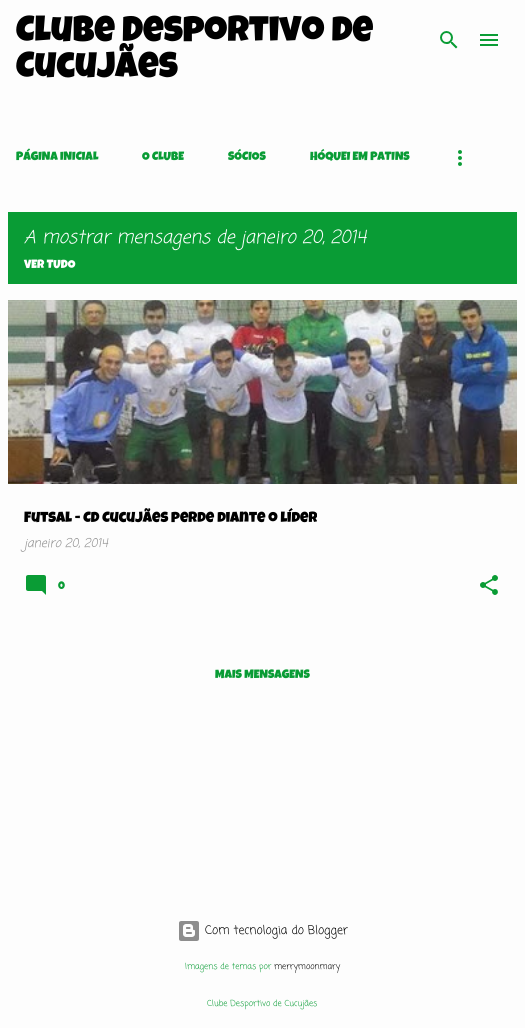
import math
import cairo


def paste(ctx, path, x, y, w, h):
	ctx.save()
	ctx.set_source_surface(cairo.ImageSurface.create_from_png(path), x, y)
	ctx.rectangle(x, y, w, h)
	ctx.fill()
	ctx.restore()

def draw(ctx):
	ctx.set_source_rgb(0.992, 0.992, 0.992)
	ctx.paint()
	ctx.select_font_face('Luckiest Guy')
	ctx.set_font_size(36)
	ctx.set_source_rgb(0, 0, 0)
	ctx.move_to(16, 41)
	ctx.show_text('Clube Desportivo de')
	ctx.move_to(16, 77)
	ctx.show_text('Cucujães')
	paste(ctx, 'media/1.png', 440, 31, 18, 18)
	paste(ctx, 'media/2.png', 480, 34, 18, 12)
	ctx.set_font_size(12)
	ctx.set_source_rgb(0.039, 0.612, 0.208)
	for x, y, s in [
		(16, 160, 'PÁGINA INICIAL'),
		(142, 160, 'O CLUBE'),
		(228, 160, 'SÓCIOS'),
		(310, 160, 'HÓQUEI EM PATINS'),
	]:
		ctx.move_to(x, y)
		ctx.show_text(s)
	paste(ctx, 'media/3.png', 458, 150, 4, 16)
	ctx.rectangle(8, 212, 509, 72)
	ctx.fill()
	ctx.select_font_face('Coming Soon', cairo.FONT_SLANT_ITALIC)
	ctx.set_font_size(18)
	ctx.set_source_rgb(1, 1, 1)
	ctx.move_to(24, 243)
	ctx.show_text('A mostrar mensagens de janeiro 20, 2014')
	ctx.select_font_face('Luckiest Guy')
	ctx.set_font_size(12)
	ctx.move_to(24, 268)
	ctx.show_text('VER TUDO')
	paste(ctx, 'media/4.png', 8, 300, 509, 184)
	ctx.set_font_size(14.7)
	ctx.set_source_rgb(0, 0, 0)
	ctx.move_to(24, 522)
	ctx.show_text('Futsal - CD Cucujães perde diante o líder')
	ctx.select_font_face('Coming Soon', cairo.FONT_SLANT_ITALIC)
	ctx.set_font_size(12)
	ctx.set_source_rgb(0.553, 0.553, 0.553)
	ctx.move_to(24, 547)
	ctx.show_text('janeiro 20, 2014')
	paste(ctx, 'media/5.png', 26, 575, 20, 20)
	ctx.select_font_face('Luckiest Guy')
	ctx.set_font_size(11)
	ctx.set_source_rgb(0.039, 0.612, 0.208)
	ctx.move_to(58, 589)
	ctx.show_text('0')
	paste(ctx, 'media/6.png', 480, 575, 18, 20)
	ctx.set_font_size(12)
	ctx.move_to(215, 678)
	ctx.show_text('MAIS MENSAGENS')
	paste(ctx, 'media/7.png', 179, 921, 20, 20)
	ctx.select_font_face('Coming Soon')
	ctx.set_source_rgb(0, 0, 0)
	ctx.move_to(205, 934)
	ctx.show_text('Com tecnologia do Blogger')
	ctx.set_font_size(8.4)
	ctx.set_source_rgb(0.039, 0.612, 0.208)
	ctx.move_to(185, 969)
	ctx.show_text('Imagens de temas por')
	ctx.set_source_rgb(0, 0, 0)
	ctx.move_to(274, 969)
	ctx.show_text('merrymoonmary')
	ctx.set_source_rgb(0.039, 0.612, 0.208)
	ctx.move_to(207, 1006)
	ctx.show_text('Clube Desportivo de Cucujães')


surface = cairo.ImageSurface(cairo.FORMAT_RGB24, 525, 1028)
ctx = cairo.Context(surface)
options = cairo.FontOptions()
options.set_hint_metrics(cairo.HINT_METRICS_OFF)
options.set_hint_style(cairo.HINT_STYLE_NONE)
ctx.set_font_options(options)
ctx.set_miter_limit(4)
draw(ctx)
surface.write_to_png('image.png')
